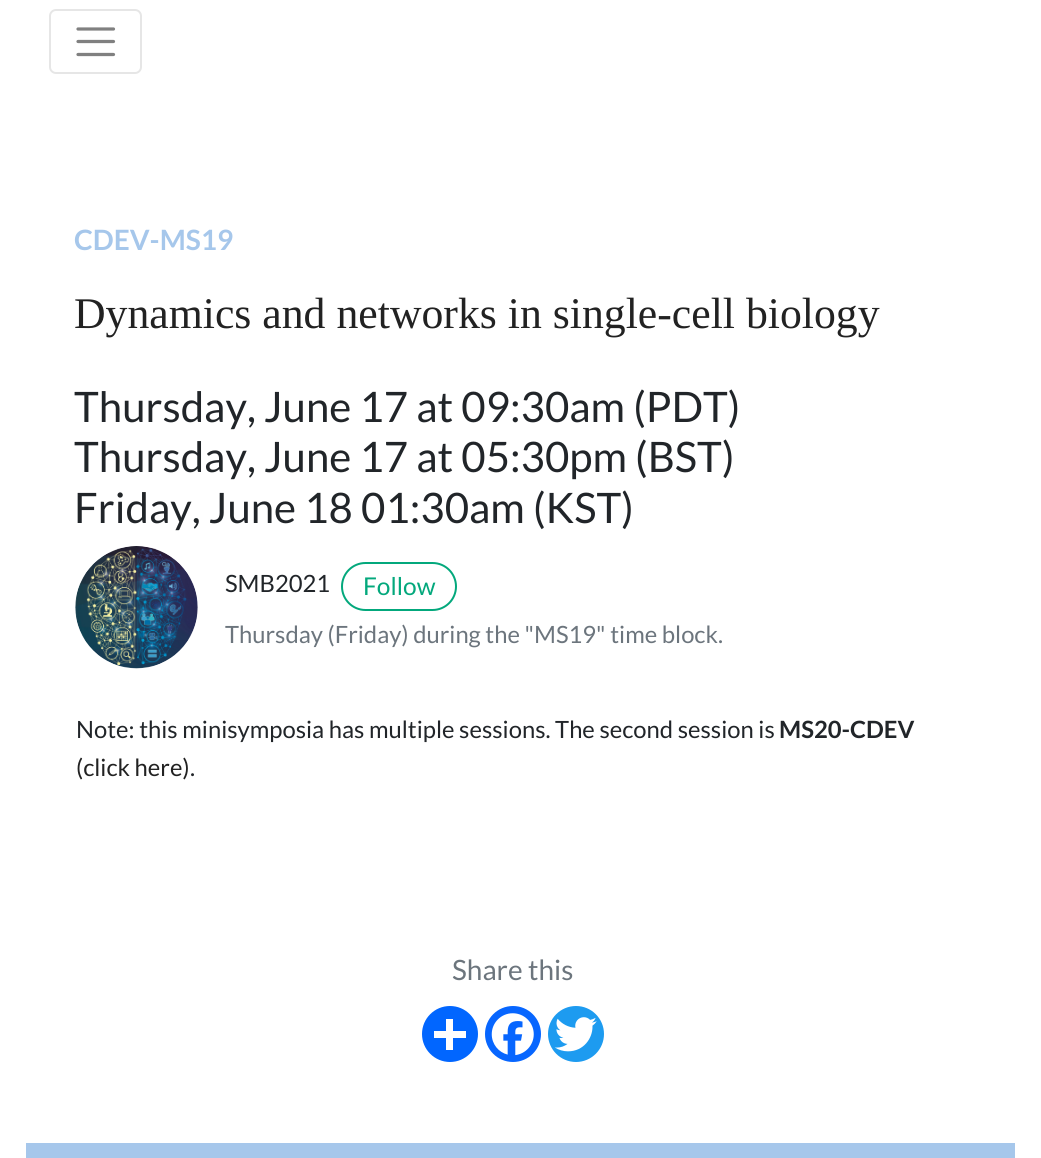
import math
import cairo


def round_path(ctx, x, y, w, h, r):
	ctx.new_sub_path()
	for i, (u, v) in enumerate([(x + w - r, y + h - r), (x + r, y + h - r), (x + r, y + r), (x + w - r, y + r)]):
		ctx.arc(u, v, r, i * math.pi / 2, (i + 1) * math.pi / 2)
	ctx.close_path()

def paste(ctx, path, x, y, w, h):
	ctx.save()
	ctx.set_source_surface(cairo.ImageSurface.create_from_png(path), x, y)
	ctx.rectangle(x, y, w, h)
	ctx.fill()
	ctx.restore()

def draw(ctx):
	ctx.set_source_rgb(1, 1, 1)
	ctx.paint()
	round_path(ctx, 50, 10, 91, 63, 6)
	ctx.set_source_rgb(0.902, 0.902, 0.902)
	ctx.stroke()
	ctx.new_path()
	ctx.move_to(78, 29)
	ctx.line_to(113.5, 29)
	ctx.move_to(78, 41.5)
	ctx.line_to(113.5, 41.5)
	ctx.move_to(78, 54.5)
	ctx.line_to(113.5, 54.5)
	ctx.set_source_rgb(0.502, 0.502, 0.502)
	ctx.set_line_width(3.2)
	ctx.set_line_cap(cairo.LINE_CAP_ROUND)
	ctx.stroke()
	ctx.select_font_face('Lato', cairo.FONT_SLANT_NORMAL, cairo.FONT_WEIGHT_BOLD)
	ctx.set_font_size(28)
	ctx.set_source_rgb(0.651, 0.78, 0.918)
	ctx.move_to(74, 250)
	ctx.show_text('CDEV-MS19')
	ctx.select_font_face('Liberation Serif')
	ctx.set_font_size(43.75)
	ctx.set_source_rgb(0.133, 0.133, 0.133)
	ctx.move_to(74, 328)
	ctx.show_text('Dynamics and networks in single-cell biology')
	ctx.select_font_face('Lato')
	ctx.set_font_size(42)
	ctx.set_source_rgb(0.129, 0.145, 0.161)
	for x, y, s in [
		(74, 422, 'Thursday, June 17 at 09:30am (PDT)'),
		(74, 472, 'Thursday, June 17 at 05:30pm (BST)'),
		(74, 523, 'Friday, June 18 01:30am (KST)'),
	]:
		ctx.move_to(x, y)
		ctx.show_text(s)
	paste(ctx, 'media/1.png', 75, 546, 123, 123)
	ctx.set_font_size(23.8)
	ctx.move_to(225, 592)
	ctx.show_text('SMB2021')
	round_path(ctx, 342, 563, 114, 47, 23.5)
	ctx.set_source_rgb(0.012, 0.659, 0.486)
	ctx.set_line_width(2)
	ctx.set_line_cap(cairo.LINE_CAP_BUTT)
	ctx.stroke()
	ctx.set_font_size(24.5)
	ctx.move_to(363, 595)
	ctx.show_text('Follow')
	ctx.set_font_size(23.8)
	ctx.set_source_rgb(0.424, 0.459, 0.49)
	ctx.move_to(225, 643)
	ctx.show_text('Thursday (Friday) during the "MS19" time block.')
	ctx.set_source_rgb(0.129, 0.145, 0.161)
	ctx.move_to(76, 738)
	ctx.show_text('Note: this minisymposia has multiple sessions. The second session is')
	ctx.select_font_face('Lato', cairo.FONT_SLANT_NORMAL, cairo.FONT_WEIGHT_BOLD)
	ctx.move_to(779, 738)
	ctx.show_text('MS20-CDEV')
	ctx.select_font_face('Lato')
	ctx.set_source_rgb(0.133, 0.133, 0.133)
	ctx.move_to(76, 776)
	ctx.show_text('(click here)')
	ctx.set_source_rgb(0.129, 0.145, 0.161)
	ctx.move_to(190, 776)
	ctx.show_text('.')
	ctx.set_font_size(28)
	ctx.set_source_rgb(0.424, 0.459, 0.49)
	ctx.move_to(452, 980)
	ctx.show_text('Share this')
	ctx.set_source_rgb(0.004, 0.4, 1)
	ctx.new_path()
	ctx.arc(450, 1034, 28, 0, 2 * math.pi)
	ctx.fill()
	ctx.set_source_rgb(1, 1, 1)
	ctx.rectangle(446, 1019, 7, 31)
	ctx.fill()
	ctx.rectangle(434, 1031, 32, 7)
	ctx.fill()
	ctx.set_source_rgb(0.031, 0.4, 1)
	ctx.arc(513, 1034, 28, 0, 2 * math.pi)
	ctx.fill()
	paste(ctx, 'media/2.png', 491, 1013, 43, 43)
	ctx.set_source_rgb(0.114, 0.608, 0.941)
	ctx.arc(576, 1034, 28, 0, 2 * math.pi)
	ctx.fill()
	paste(ctx, 'media/3.png', 555, 1017, 42, 35)
	ctx.set_source_rgb(0.651, 0.78, 0.918)
	ctx.rectangle(26, 1143, 989, 15)
	ctx.fill()


surface = cairo.ImageSurface(cairo.FORMAT_RGB24, 1041, 1158)
ctx = cairo.Context(surface)
options = cairo.FontOptions()
options.set_hint_metrics(cairo.HINT_METRICS_OFF)
options.set_hint_style(cairo.HINT_STYLE_NONE)
ctx.set_font_options(options)
ctx.set_miter_limit(4)
draw(ctx)
surface.write_to_png('image.png')
